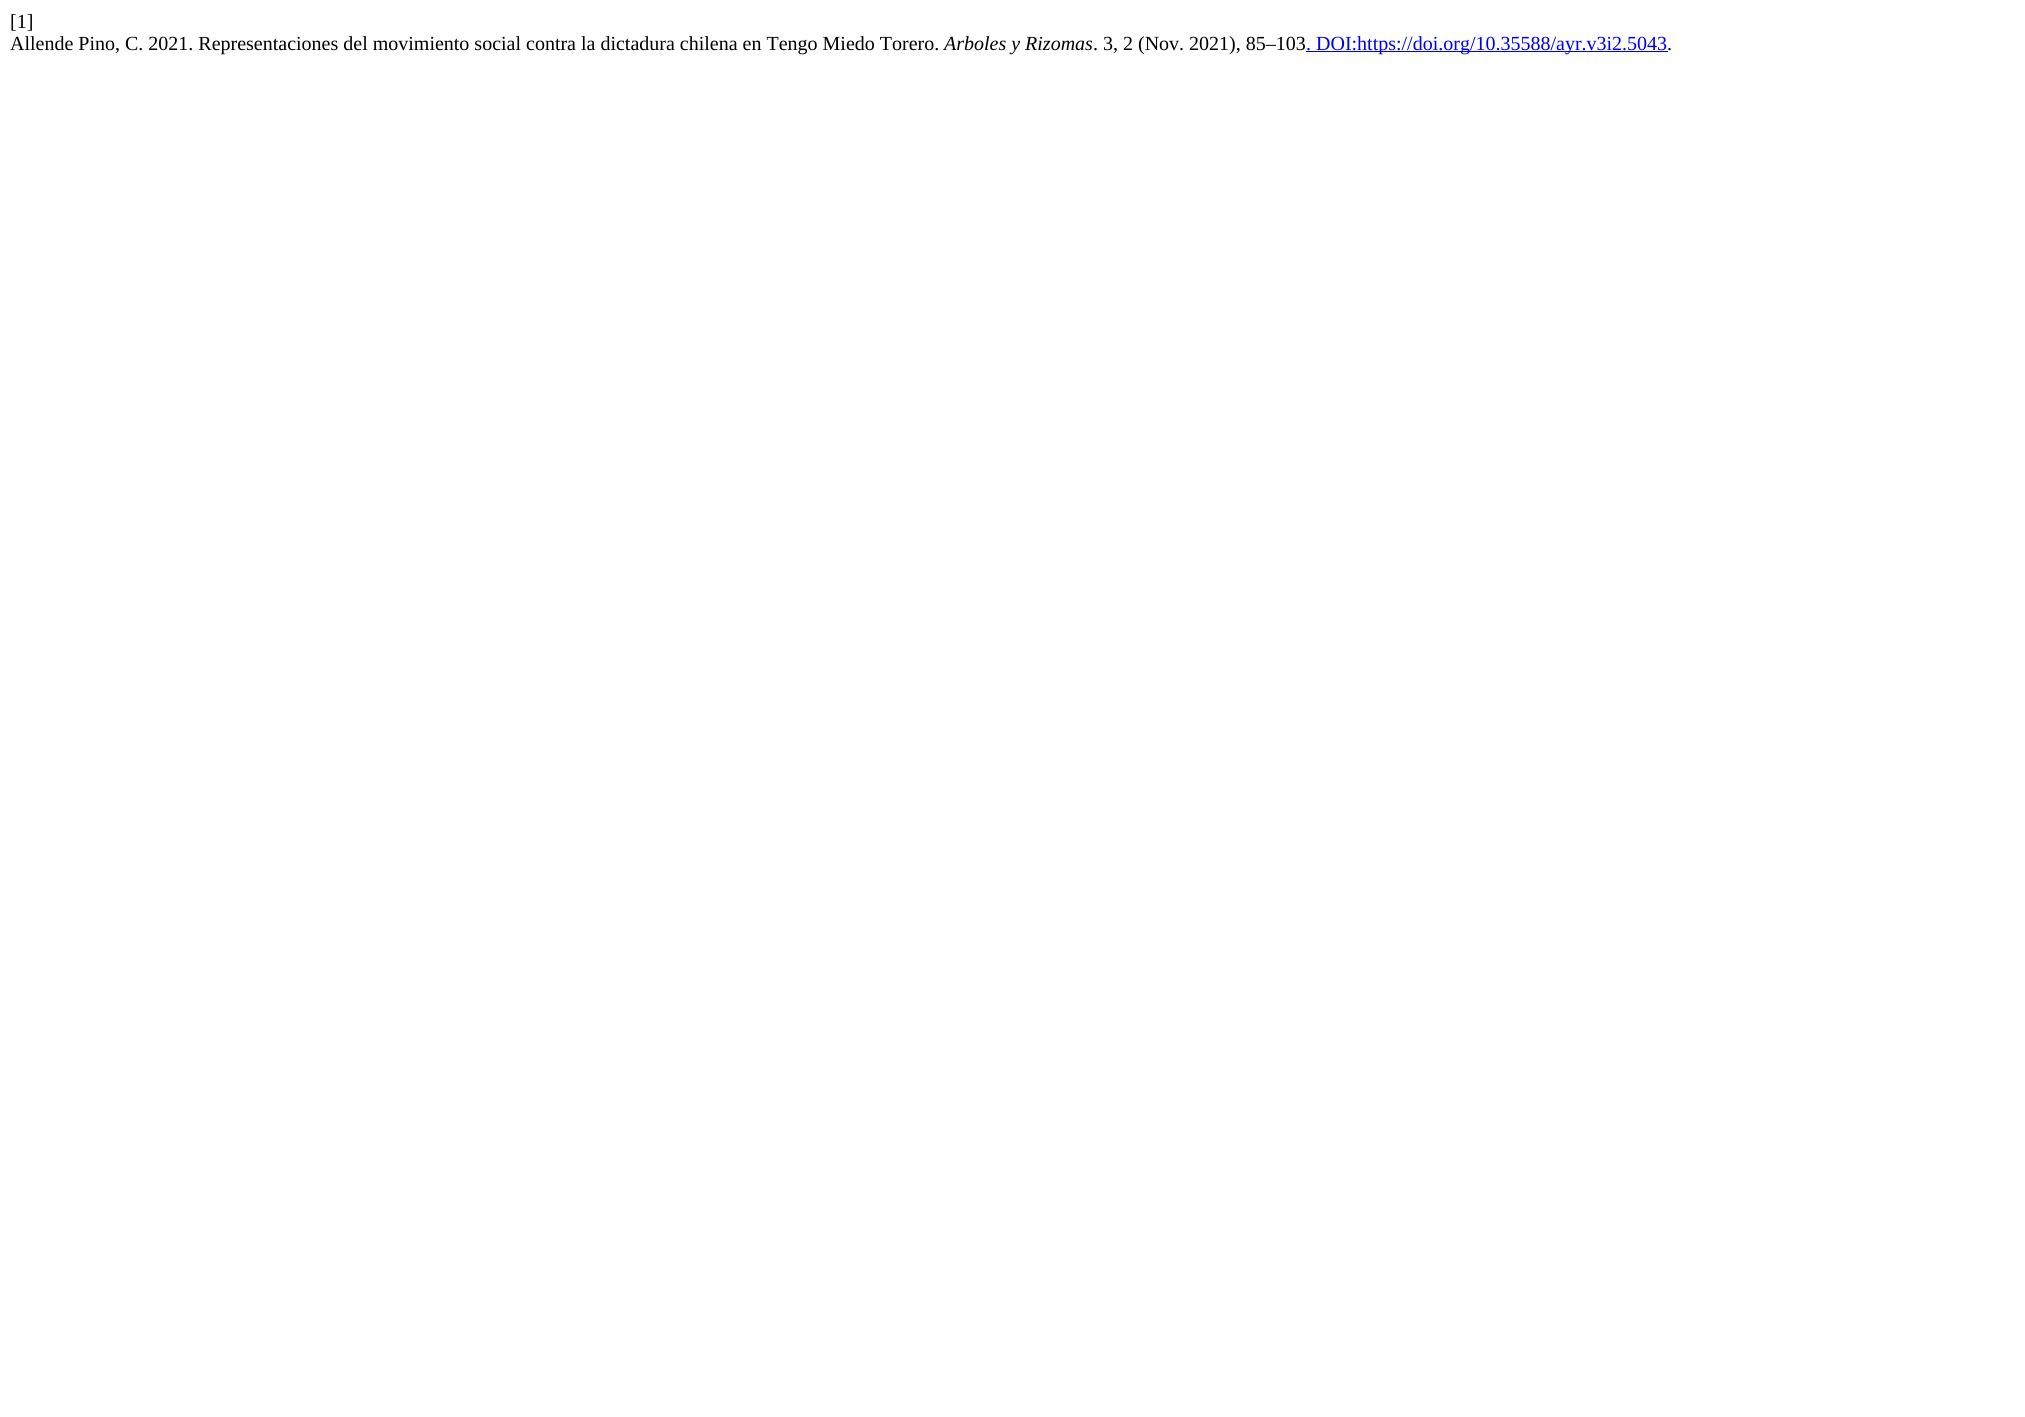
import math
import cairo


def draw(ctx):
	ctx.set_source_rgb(1, 1, 1)
	ctx.paint()
	ctx.select_font_face('Liberation Serif')
	ctx.set_font_size(20)
	ctx.set_source_rgb(0, 0, 0)
	ctx.move_to(10, 28)
	ctx.show_text('[1]')
	ctx.move_to(10, 50)
	ctx.show_text('Allende Pino, C. 2021. Representaciones del movimiento social contra la dictadura chilena en Tengo Miedo Torero.')
	ctx.select_font_face('Liberation Serif', cairo.FONT_SLANT_ITALIC)
	ctx.move_to(944, 50)
	ctx.show_text('Arboles y Rizomas')
	ctx.select_font_face('Liberation Serif')
	ctx.move_to(1093, 50)
	ctx.show_text('. 3, 2 (Nov. 2021), 85–103')
	ctx.set_source_rgb(0, 0, 0.933)
	ctx.rectangle(1306, 51, 362, 1)
	ctx.fill()
	ctx.move_to(1306, 50)
	ctx.show_text('. DOI:https://doi.org/10.35588/ayr.v3i2.5043')
	ctx.set_source_rgb(0, 0, 0)
	ctx.move_to(1667, 50)
	ctx.show_text('.')


surface = cairo.ImageSurface(cairo.FORMAT_RGB24, 2025, 1417)
ctx = cairo.Context(surface)
options = cairo.FontOptions()
options.set_hint_metrics(cairo.HINT_METRICS_OFF)
options.set_hint_style(cairo.HINT_STYLE_NONE)
ctx.set_font_options(options)
ctx.set_miter_limit(4)
draw(ctx)
surface.write_to_png('image.png')
